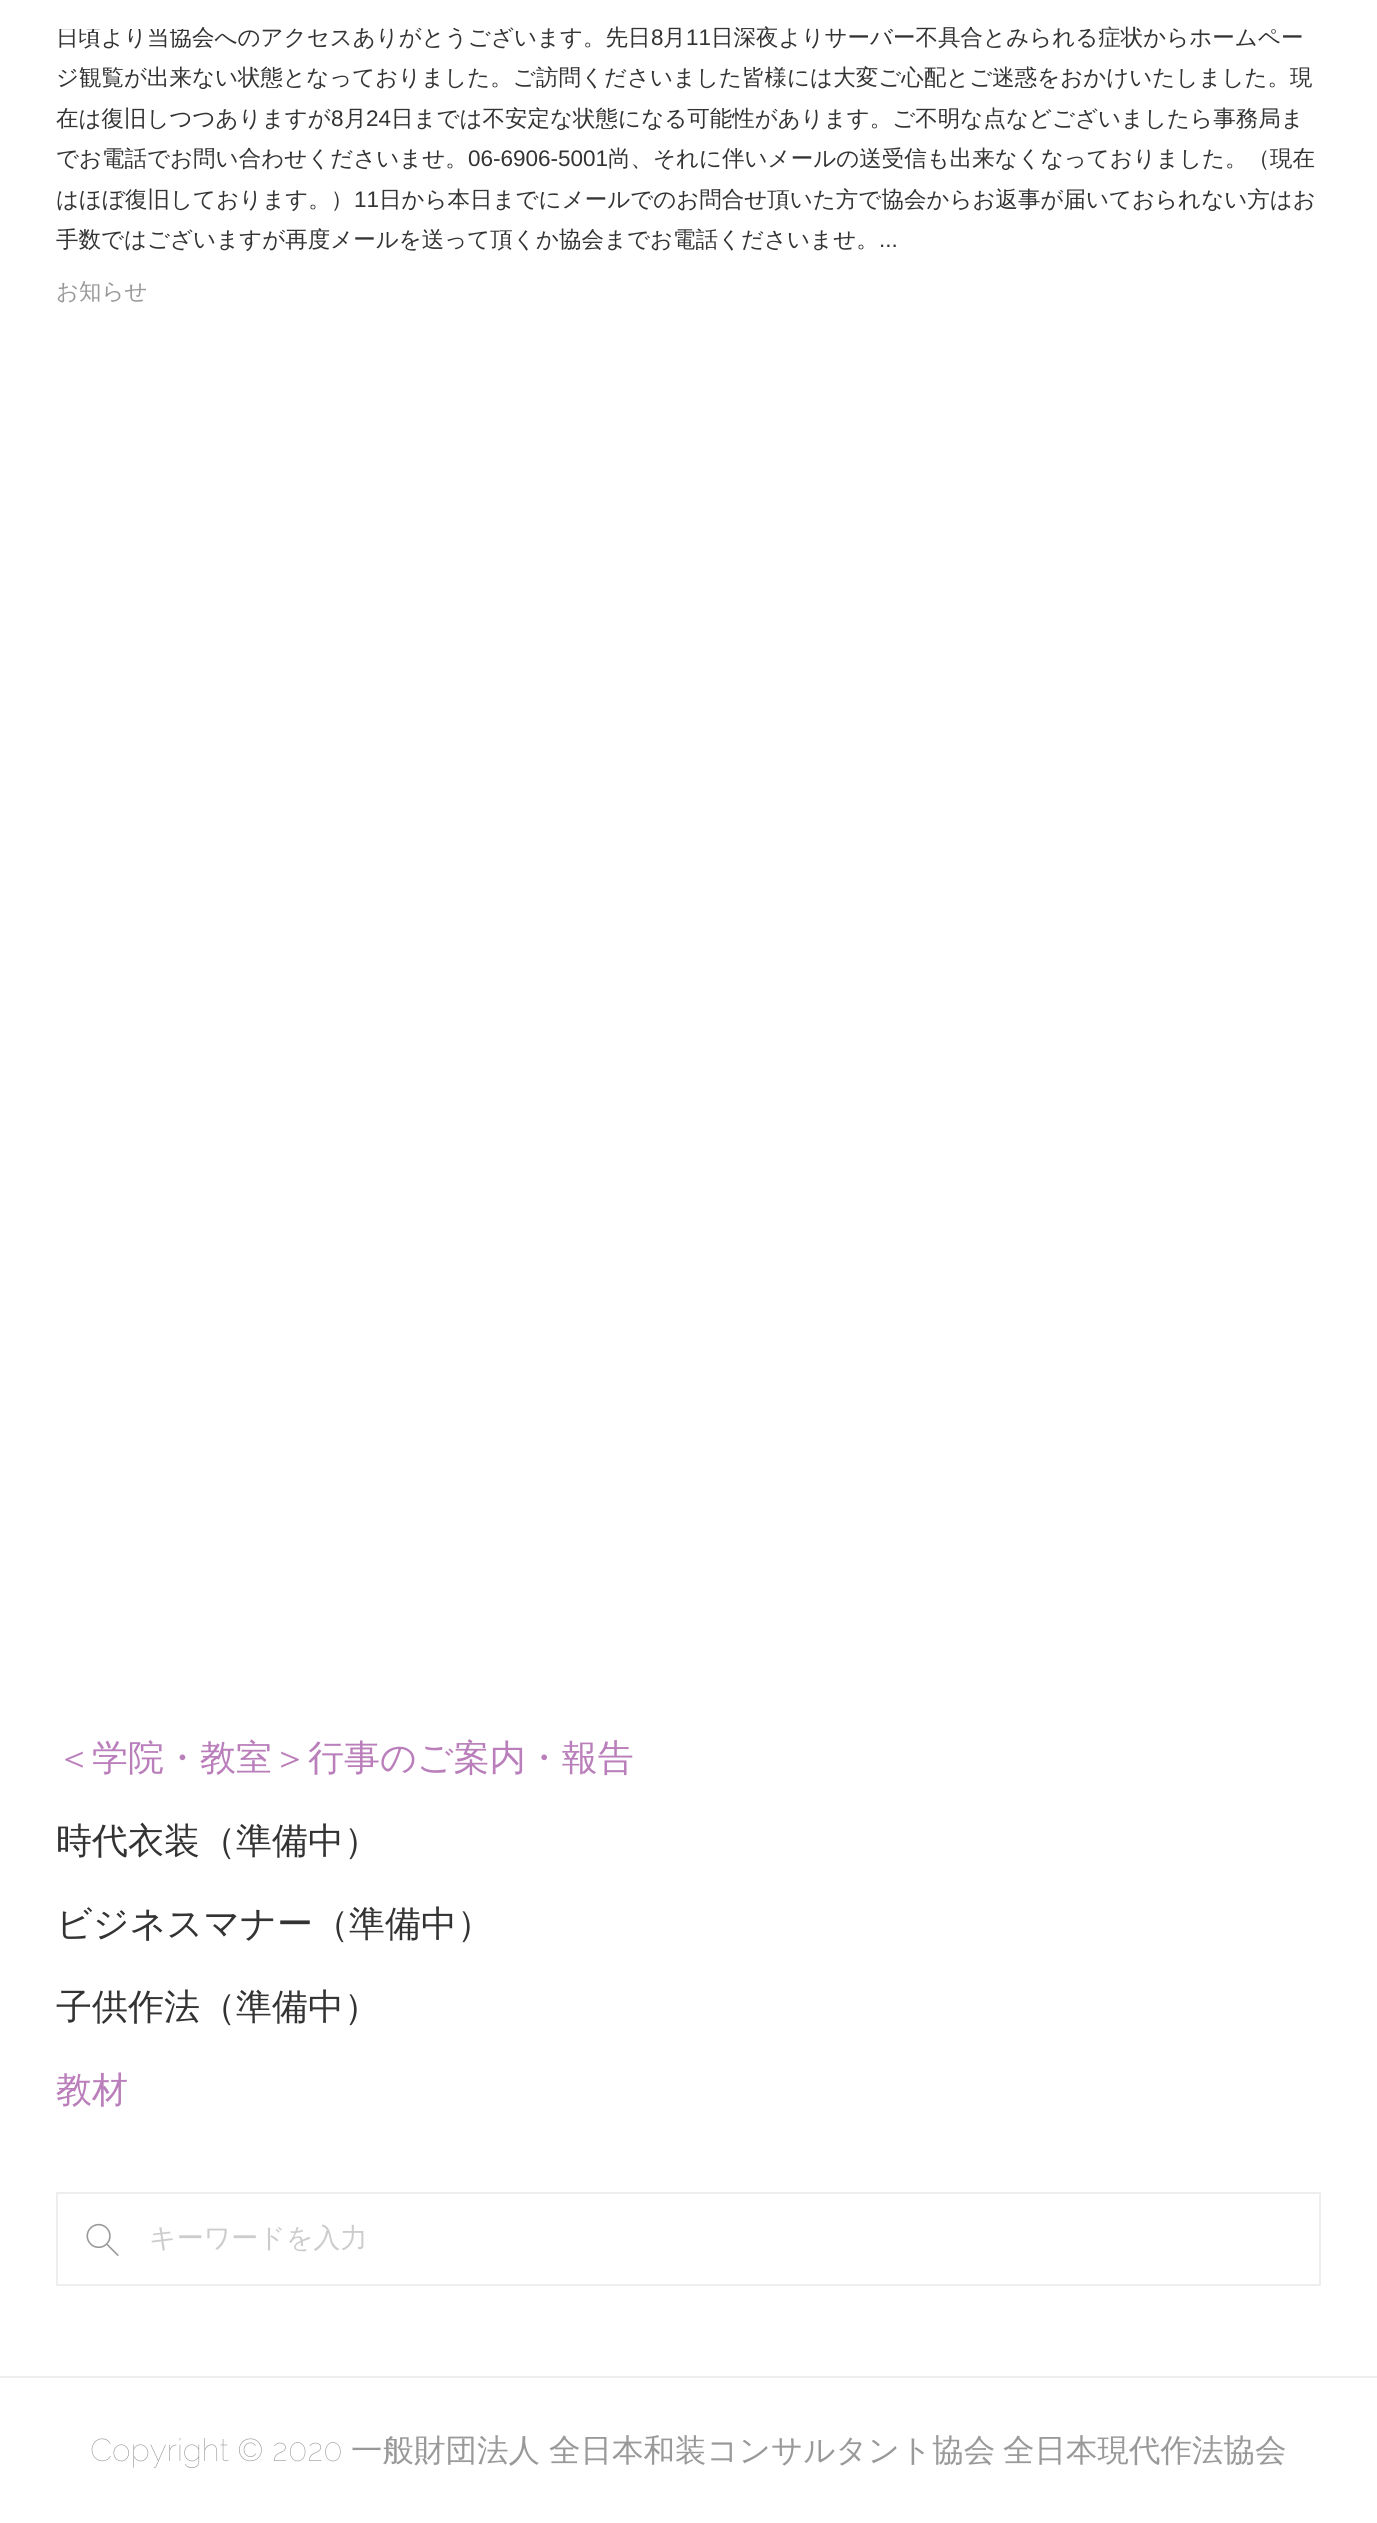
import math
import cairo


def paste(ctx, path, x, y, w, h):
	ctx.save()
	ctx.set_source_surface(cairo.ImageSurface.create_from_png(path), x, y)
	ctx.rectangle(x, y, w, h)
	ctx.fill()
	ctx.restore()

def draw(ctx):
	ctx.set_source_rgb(1, 1, 1)
	ctx.paint()
	ctx.select_font_face('WenQuanYi Zen Hei Medium')
	ctx.set_font_size(22.5)
	ctx.set_source_rgb(0.2, 0.2, 0.2)
	ctx.move_to(56, 45)
	ctx.show_text('日頃より当協会へのアクセスありがとうございます。先日')
	ctx.select_font_face('Liberation Sans')
	ctx.move_to(651, 45)
	ctx.show_text('8')
	ctx.select_font_face('WenQuanYi Zen Hei Medium')
	ctx.move_to(663, 45)
	ctx.show_text('月')
	ctx.select_font_face('Liberation Sans')
	ctx.move_to(686, 45)
	ctx.show_text('11')
	ctx.select_font_face('WenQuanYi Zen Hei Medium')
	for x, y, s in [
		(711, 45, '日深夜よりサーバー不具合とみられる症状からホームペー'),
		(56, 85, 'ジ観覧が出来ない状態となっておりました。ご訪問くださいました皆様には大変ご心配とご迷惑をおかけいたしました。現'),
		(56, 126, '在は復旧しつつありますが'),
	]:
		ctx.move_to(x, y)
		ctx.show_text(s)
	ctx.select_font_face('Liberation Sans')
	ctx.move_to(331, 126)
	ctx.show_text('8')
	ctx.select_font_face('WenQuanYi Zen Hei Medium')
	ctx.move_to(344, 126)
	ctx.show_text('月')
	ctx.select_font_face('Liberation Sans')
	ctx.move_to(366, 126)
	ctx.show_text('24')
	ctx.select_font_face('WenQuanYi Zen Hei Medium')
	ctx.move_to(391, 126)
	ctx.show_text('日までは不安定な状態になる可能性があります。ご不明な点などございましたら事務局ま')
	ctx.move_to(56, 166)
	ctx.show_text('でお電話でお問い合わせくださいませ。')
	ctx.select_font_face('Liberation Sans')
	ctx.move_to(468, 166)
	ctx.show_text('06-6906-5001')
	ctx.select_font_face('WenQuanYi Zen Hei Medium')
	ctx.move_to(608, 166)
	ctx.show_text('尚、それに伴いメールの送受信も出来なくなっておりました。（現在')
	ctx.move_to(56, 207)
	ctx.show_text('はほぼ復旧しております。）')
	ctx.select_font_face('Liberation Sans')
	ctx.move_to(354, 207)
	ctx.show_text('11')
	ctx.select_font_face('WenQuanYi Zen Hei Medium')
	ctx.move_to(379, 207)
	ctx.show_text('日から本日までにメールでのお問合せ頂いた方で協会からお返事が届いておられない方はお')
	ctx.move_to(56, 247)
	ctx.show_text('手数ではございますが再度メールを送って頂くか協会までお電話くださいませ。')
	ctx.select_font_face('Liberation Sans')
	ctx.move_to(879, 247)
	ctx.show_text('...')
	ctx.set_source_rgb(1, 1, 1)
	ctx.rectangle(59, 26, 125, 3)
	ctx.fill()
	ctx.select_font_face('WenQuanYi Zen Hei Medium')
	ctx.set_source_rgb(0.6, 0.6, 0.6)
	ctx.move_to(56, 299)
	ctx.show_text('お知らせ')
	ctx.set_font_size(36)
	ctx.set_source_rgb(0.729, 0.498, 0.733)
	ctx.move_to(56, 1770)
	ctx.show_text('＜学院・教室＞行事のご案内・報告')
	ctx.set_source_rgb(0.2, 0.2, 0.2)
	for x, y, s in [
		(56, 1853, '時代衣装（準備中）'),
		(56, 1936, 'ビジネスマナー（準備中）'),
		(56, 2019, '子供作法（準備中）'),
	]:
		ctx.move_to(x, y)
		ctx.show_text(s)
	ctx.set_source_rgb(0.729, 0.498, 0.733)
	ctx.move_to(56, 2102)
	ctx.show_text('教材')
	ctx.rectangle(57, 2193, 1263, 92)
	ctx.set_source_rgb(0.933, 0.933, 0.933)
	ctx.stroke()
	paste(ctx, 'media/1.png', 86, 2223, 33, 33)
	ctx.set_font_size(27)
	ctx.set_source_rgb(0.8, 0.8, 0.8)
	ctx.move_to(149, 2247)
	ctx.show_text('キーワードを入力')
	ctx.set_source_rgb(0.933, 0.933, 0.933)
	ctx.rectangle(0, 2376, 1377, 2)
	ctx.fill()
	ctx.select_font_face('Raleway Thin')
	ctx.set_font_size(31.5)
	ctx.set_source_rgb(0.6, 0.6, 0.6)
	ctx.move_to(90, 2461)
	ctx.show_text('Copyright © 2020')
	ctx.select_font_face('WenQuanYi Zen Hei Medium')
	for x, y, s in [
		(351, 2461, '一般財団法人'),
		(549, 2461, '全日本和装コンサルタント協会'),
		(1003, 2461, '全日本現代作法協会'),
	]:
		ctx.move_to(x, y)
		ctx.show_text(s)


surface = cairo.ImageSurface(cairo.FORMAT_RGB24, 1377, 2523)
ctx = cairo.Context(surface)
options = cairo.FontOptions()
options.set_hint_metrics(cairo.HINT_METRICS_OFF)
options.set_hint_style(cairo.HINT_STYLE_NONE)
ctx.set_font_options(options)
ctx.set_miter_limit(4)
draw(ctx)
surface.write_to_png('image.png')
